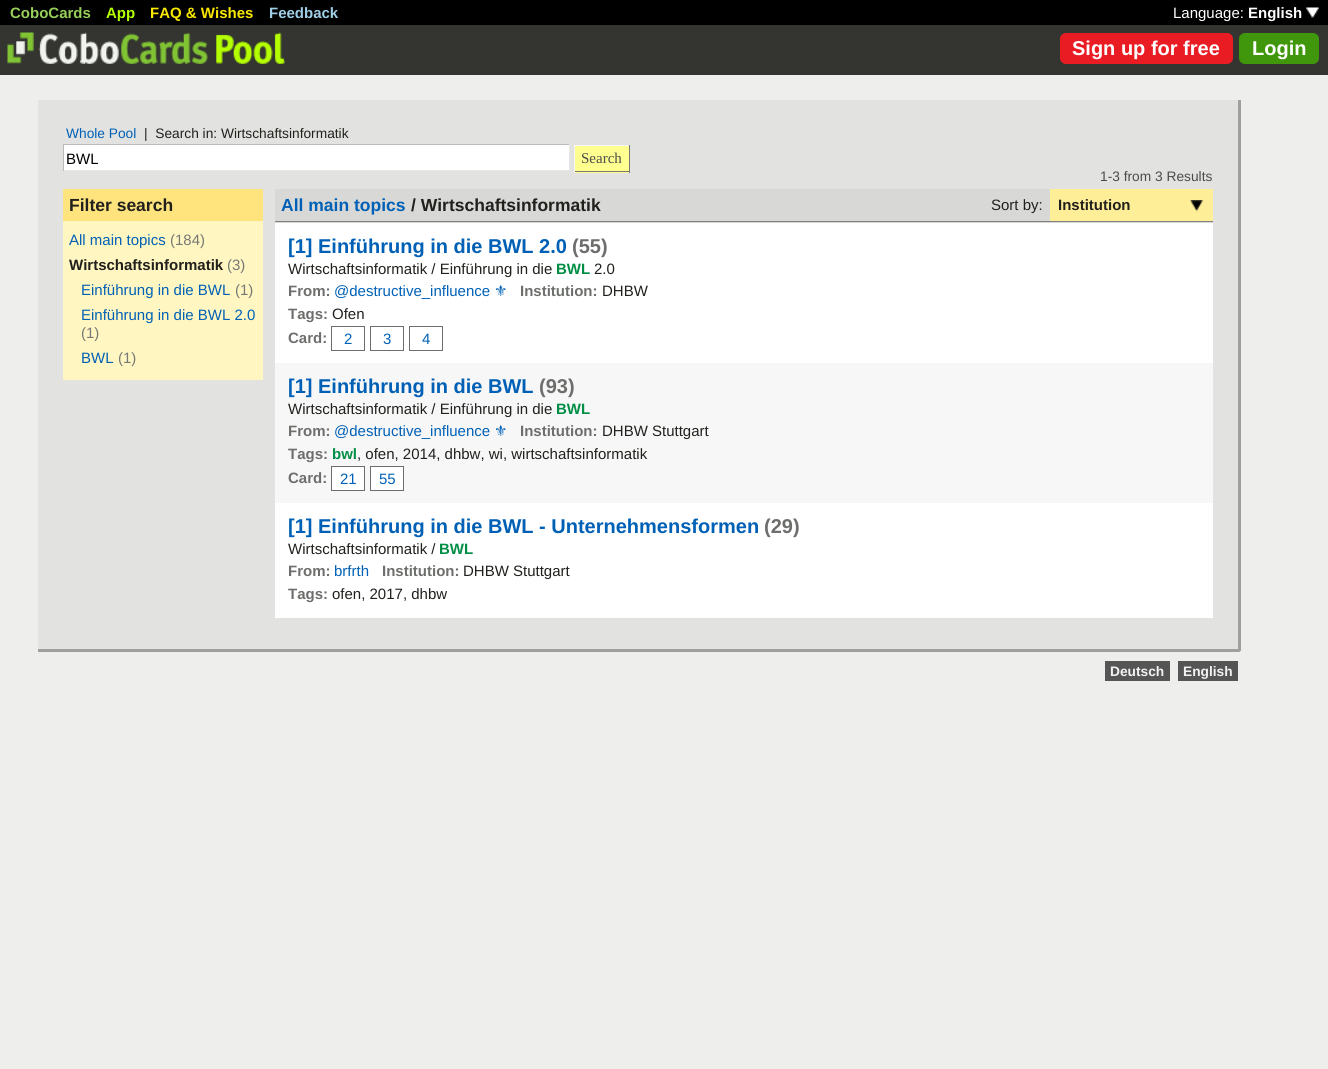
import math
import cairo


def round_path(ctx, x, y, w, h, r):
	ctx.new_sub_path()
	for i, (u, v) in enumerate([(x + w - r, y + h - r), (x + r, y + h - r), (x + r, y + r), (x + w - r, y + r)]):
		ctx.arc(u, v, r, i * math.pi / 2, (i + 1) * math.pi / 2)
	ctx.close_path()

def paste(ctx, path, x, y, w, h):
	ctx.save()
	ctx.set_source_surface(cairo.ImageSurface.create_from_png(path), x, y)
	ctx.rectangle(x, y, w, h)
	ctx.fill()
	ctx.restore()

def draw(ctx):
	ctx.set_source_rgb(0.933, 0.937, 0.922)
	ctx.paint()
	ctx.set_source_rgb(0.204, 0.208, 0.188)
	ctx.rectangle(0, 25, 1328, 50)
	ctx.fill()
	ctx.set_source_rgb(0, 0, 0)
	ctx.rectangle(0, 0, 1328, 25)
	ctx.fill()
	ctx.select_font_face('Liberation Sans', cairo.FONT_SLANT_NORMAL, cairo.FONT_WEIGHT_BOLD)
	ctx.set_font_size(15)
	ctx.set_source_rgb(0.592, 0.812, 0.345)
	ctx.move_to(10, 18)
	ctx.show_text('CoboCards')
	ctx.set_source_rgb(0.706, 1, 0)
	ctx.move_to(106, 18)
	ctx.show_text('App')
	ctx.set_source_rgb(0.976, 0.91, 0)
	ctx.move_to(150, 18)
	ctx.show_text('FAQ & Wishes')
	ctx.set_source_rgb(0.624, 0.812, 0.906)
	ctx.move_to(269, 18)
	ctx.show_text('Feedback')
	ctx.select_font_face('Liberation Sans')
	ctx.set_source_rgb(1, 1, 1)
	ctx.move_to(1173, 18)
	ctx.show_text('Language:')
	ctx.select_font_face('Liberation Sans', cairo.FONT_SLANT_NORMAL, cairo.FONT_WEIGHT_BOLD)
	ctx.move_to(1248, 18)
	ctx.show_text('English')
	paste(ctx, 'media/1.png', 1306, 7, 13, 11)
	paste(ctx, 'media/2.png', 7, 32, 278, 32)
	ctx.set_source_rgb(0.914, 0.11, 0.141)
	round_path(ctx, 1060, 33, 173, 31, 6)
	ctx.fill()
	ctx.set_font_size(20)
	ctx.set_source_rgb(1, 1, 1)
	ctx.move_to(1072, 55)
	ctx.show_text('Sign up for free')
	ctx.set_source_rgb(0.251, 0.592, 0.043)
	round_path(ctx, 1239, 33, 80, 31, 6)
	ctx.fill()
	ctx.set_source_rgb(1, 1, 1)
	ctx.move_to(1252, 55)
	ctx.show_text('Login')
	ctx.set_source_rgb(0.886, 0.89, 0.878)
	ctx.rectangle(38, 100, 1200, 549)
	ctx.fill()
	ctx.set_source_rgb(0.624, 0.624, 0.624)
	ctx.rectangle(1238, 100, 3, 551)
	ctx.rectangle(38, 649, 1202, 3)
	ctx.fill()
	ctx.select_font_face('Liberation Sans')
	ctx.set_font_size(13.75)
	ctx.set_source_rgb(0, 0.376, 0.714)
	ctx.move_to(66, 138)
	ctx.show_text('Whole Pool')
	ctx.set_source_rgb(0.129, 0.125, 0.11)
	ctx.move_to(144, 138)
	ctx.show_text('|  Search in: Wirtschaftsinformatik')
	ctx.set_source_rgb(1, 1, 1)
	ctx.rectangle(64, 145, 505, 25)
	ctx.fill()
	ctx.set_source_rgb(0.733, 0.733, 0.729)
	ctx.rectangle(63, 144, 507, 1)
	ctx.fill()
	ctx.set_source_rgb(0.91, 0.914, 0.906)
	ctx.rectangle(569, 144, 1, 27)
	ctx.rectangle(63, 170, 507, 1)
	ctx.fill()
	ctx.set_source_rgb(0.733, 0.733, 0.729)
	ctx.rectangle(63, 144, 1, 27)
	ctx.fill()
	ctx.set_font_size(15)
	ctx.set_source_rgb(0, 0, 0)
	ctx.move_to(66, 164)
	ctx.show_text('BWL')
	ctx.set_source_rgb(1, 1, 0.565)
	ctx.rectangle(575, 146, 54, 27)
	ctx.fill()
	ctx.set_source_rgb(0.965, 0.965, 0.965)
	ctx.rectangle(574, 145, 56, 1)
	ctx.fill()
	ctx.set_source_rgb(0.467, 0.471, 0.463)
	ctx.rectangle(629, 145, 1, 28)
	ctx.rectangle(574, 171, 56, 1)
	ctx.fill()
	ctx.set_source_rgb(0.965, 0.965, 0.965)
	ctx.rectangle(574, 145, 1, 28)
	ctx.fill()
	ctx.select_font_face('Liberation Serif')
	ctx.set_source_rgb(0.294, 0.298, 0.286)
	ctx.move_to(581, 163)
	ctx.show_text('Search')
	ctx.set_source_rgb(1, 0.894, 0.494)
	ctx.rectangle(63, 189, 200, 32)
	ctx.fill()
	ctx.select_font_face('Liberation Sans', cairo.FONT_SLANT_NORMAL, cairo.FONT_WEIGHT_BOLD)
	ctx.set_font_size(17.5)
	ctx.set_source_rgb(0.129, 0.125, 0.11)
	ctx.move_to(69, 211)
	ctx.show_text('Filter search')
	ctx.set_source_rgb(1, 0.961, 0.757)
	ctx.rectangle(63, 221, 200, 159)
	ctx.fill()
	ctx.select_font_face('Liberation Sans')
	ctx.set_font_size(15)
	ctx.set_source_rgb(0, 0.376, 0.714)
	ctx.move_to(69, 245)
	ctx.show_text('All main topics')
	ctx.set_source_rgb(0.467, 0.471, 0.463)
	ctx.move_to(170, 245)
	ctx.show_text('(184)')
	ctx.select_font_face('Liberation Sans', cairo.FONT_SLANT_NORMAL, cairo.FONT_WEIGHT_BOLD)
	ctx.set_source_rgb(0.129, 0.125, 0.11)
	ctx.move_to(69, 270)
	ctx.show_text('Wirtschaftsinformatik')
	ctx.select_font_face('Liberation Sans')
	ctx.set_source_rgb(0.467, 0.471, 0.463)
	ctx.move_to(227, 270)
	ctx.show_text('(3)')
	ctx.set_source_rgb(0, 0.376, 0.714)
	ctx.move_to(81, 295)
	ctx.show_text('Einführung in die BWL')
	ctx.set_source_rgb(0.467, 0.471, 0.463)
	ctx.move_to(235, 295)
	ctx.show_text('(1)')
	ctx.set_source_rgb(0, 0.376, 0.714)
	ctx.move_to(81, 320)
	ctx.show_text('Einführung in die BWL 2.0')
	ctx.set_source_rgb(0.467, 0.471, 0.463)
	ctx.move_to(81, 338)
	ctx.show_text('(1)')
	ctx.set_source_rgb(0, 0.376, 0.714)
	ctx.move_to(81, 363)
	ctx.show_text('BWL')
	ctx.set_source_rgb(0.467, 0.471, 0.463)
	ctx.move_to(118, 363)
	ctx.show_text('(1)')
	ctx.set_font_size(13.75)
	ctx.set_source_rgb(0.294, 0.298, 0.286)
	ctx.move_to(1100, 181)
	ctx.show_text('1-3 from 3 Results')
	ctx.set_source_rgb(0.847, 0.851, 0.843)
	ctx.rectangle(275, 189, 938, 34)
	ctx.fill()
	ctx.set_source_rgb(0.502, 0.502, 0.498)
	ctx.rectangle(275, 221, 938, 1)
	ctx.fill()
	ctx.select_font_face('Liberation Sans', cairo.FONT_SLANT_NORMAL, cairo.FONT_WEIGHT_BOLD)
	ctx.set_font_size(17.5)
	ctx.set_source_rgb(0, 0.376, 0.714)
	ctx.move_to(281, 211)
	ctx.show_text('All main topics')
	ctx.set_source_rgb(0.129, 0.125, 0.11)
	ctx.move_to(411, 211)
	ctx.show_text('/ Wirtschaftsinformatik')
	ctx.select_font_face('Liberation Sans')
	ctx.set_font_size(15)
	ctx.move_to(991, 210)
	ctx.show_text('Sort by:')
	ctx.set_source_rgb(1, 0.933, 0.596)
	ctx.rectangle(1050, 189, 163, 32)
	ctx.fill()
	ctx.select_font_face('Liberation Sans', cairo.FONT_SLANT_NORMAL, cairo.FONT_WEIGHT_BOLD)
	ctx.set_source_rgb(0.129, 0.125, 0.11)
	ctx.move_to(1058, 210)
	ctx.show_text('Institution')
	paste(ctx, 'media/3.png', 1190, 200, 13, 12)
	ctx.set_source_rgb(1, 1, 1)
	ctx.rectangle(275, 223, 938, 140)
	ctx.fill()
	ctx.set_font_size(20)
	ctx.set_source_rgb(0, 0.376, 0.714)
	ctx.move_to(288, 253)
	ctx.show_text('[1] Einführung in die BWL 2.0')
	ctx.set_source_rgb(0.427, 0.435, 0.424)
	ctx.move_to(572, 253)
	ctx.show_text('(55)')
	ctx.select_font_face('Liberation Sans')
	ctx.set_font_size(15)
	ctx.set_source_rgb(0.129, 0.125, 0.11)
	ctx.move_to(288, 274)
	ctx.show_text('Wirtschaftsinformatik / Einführung in die')
	ctx.select_font_face('Liberation Sans', cairo.FONT_SLANT_NORMAL, cairo.FONT_WEIGHT_BOLD)
	ctx.set_source_rgb(0, 0.557, 0.271)
	ctx.move_to(556, 274)
	ctx.show_text('BWL')
	ctx.select_font_face('Liberation Sans')
	ctx.set_source_rgb(0.129, 0.125, 0.11)
	ctx.move_to(594, 274)
	ctx.show_text('2.0')
	ctx.select_font_face('Liberation Sans', cairo.FONT_SLANT_NORMAL, cairo.FONT_WEIGHT_BOLD)
	ctx.set_source_rgb(0.427, 0.435, 0.424)
	ctx.move_to(288, 296)
	ctx.show_text('From:')
	ctx.select_font_face('Liberation Sans')
	ctx.set_source_rgb(0, 0.376, 0.714)
	ctx.move_to(334, 296)
	ctx.show_text('@destructive_influence')
	ctx.select_font_face('DejaVu Sans')
	ctx.move_to(494, 296)
	ctx.show_text('⚜')
	ctx.select_font_face('Liberation Sans', cairo.FONT_SLANT_NORMAL, cairo.FONT_WEIGHT_BOLD)
	ctx.set_source_rgb(0.427, 0.435, 0.424)
	ctx.move_to(520, 296)
	ctx.show_text('Institution:')
	ctx.select_font_face('Liberation Sans')
	ctx.set_source_rgb(0.129, 0.125, 0.11)
	ctx.move_to(602, 296)
	ctx.show_text('DHBW')
	ctx.select_font_face('Liberation Sans', cairo.FONT_SLANT_NORMAL, cairo.FONT_WEIGHT_BOLD)
	ctx.set_source_rgb(0.427, 0.435, 0.424)
	ctx.move_to(288, 319)
	ctx.show_text('Tags:')
	ctx.select_font_face('Liberation Sans')
	ctx.set_source_rgb(0.129, 0.125, 0.11)
	ctx.move_to(332, 319)
	ctx.show_text('Ofen')
	ctx.select_font_face('Liberation Sans', cairo.FONT_SLANT_NORMAL, cairo.FONT_WEIGHT_BOLD)
	ctx.set_source_rgb(0.427, 0.435, 0.424)
	ctx.move_to(288, 343)
	ctx.show_text('Card:')
	ctx.rectangle(331.5, 326.5, 33, 24)
	ctx.set_line_width(1)
	ctx.stroke()
	ctx.select_font_face('Liberation Sans')
	ctx.set_source_rgb(0, 0.376, 0.714)
	ctx.move_to(344, 344)
	ctx.show_text('2')
	ctx.rectangle(370.5, 326.5, 33, 24)
	ctx.set_source_rgb(0.427, 0.435, 0.424)
	ctx.stroke()
	ctx.set_source_rgb(0, 0.376, 0.714)
	ctx.move_to(383, 344)
	ctx.show_text('3')
	ctx.rectangle(409.5, 326.5, 33, 24)
	ctx.set_source_rgb(0.427, 0.435, 0.424)
	ctx.stroke()
	ctx.set_source_rgb(0, 0.376, 0.714)
	ctx.move_to(422, 344)
	ctx.show_text('4')
	ctx.set_source_rgb(0.965, 0.965, 0.965)
	ctx.rectangle(275, 363, 938, 140)
	ctx.fill()
	ctx.select_font_face('Liberation Sans', cairo.FONT_SLANT_NORMAL, cairo.FONT_WEIGHT_BOLD)
	ctx.set_font_size(20)
	ctx.set_source_rgb(0, 0.376, 0.714)
	ctx.move_to(288, 393)
	ctx.show_text('[1] Einführung in die BWL')
	ctx.set_source_rgb(0.427, 0.435, 0.424)
	ctx.move_to(539, 393)
	ctx.show_text('(93)')
	ctx.select_font_face('Liberation Sans')
	ctx.set_font_size(15)
	ctx.set_source_rgb(0.129, 0.125, 0.11)
	ctx.move_to(288, 414)
	ctx.show_text('Wirtschaftsinformatik / Einführung in die')
	ctx.select_font_face('Liberation Sans', cairo.FONT_SLANT_NORMAL, cairo.FONT_WEIGHT_BOLD)
	ctx.set_source_rgb(0, 0.557, 0.271)
	ctx.move_to(556, 414)
	ctx.show_text('BWL')
	ctx.set_source_rgb(0.427, 0.435, 0.424)
	ctx.move_to(288, 436)
	ctx.show_text('From:')
	ctx.select_font_face('Liberation Sans')
	ctx.set_source_rgb(0, 0.376, 0.714)
	ctx.move_to(334, 436)
	ctx.show_text('@destructive_influence')
	ctx.select_font_face('DejaVu Sans')
	ctx.move_to(494, 436)
	ctx.show_text('⚜')
	ctx.select_font_face('Liberation Sans', cairo.FONT_SLANT_NORMAL, cairo.FONT_WEIGHT_BOLD)
	ctx.set_source_rgb(0.427, 0.435, 0.424)
	ctx.move_to(520, 436)
	ctx.show_text('Institution:')
	ctx.select_font_face('Liberation Sans')
	ctx.set_source_rgb(0.129, 0.125, 0.11)
	ctx.move_to(602, 436)
	ctx.show_text('DHBW Stuttgart')
	ctx.select_font_face('Liberation Sans', cairo.FONT_SLANT_NORMAL, cairo.FONT_WEIGHT_BOLD)
	ctx.set_source_rgb(0.427, 0.435, 0.424)
	ctx.move_to(288, 459)
	ctx.show_text('Tags:')
	ctx.set_source_rgb(0, 0.557, 0.271)
	ctx.move_to(332, 459)
	ctx.show_text('bwl')
	ctx.select_font_face('Liberation Sans')
	ctx.set_source_rgb(0.129, 0.125, 0.11)
	ctx.move_to(357, 459)
	ctx.show_text(', ofen, 2014, dhbw, wi, wirtschaftsinformatik')
	ctx.select_font_face('Liberation Sans', cairo.FONT_SLANT_NORMAL, cairo.FONT_WEIGHT_BOLD)
	ctx.set_source_rgb(0.427, 0.435, 0.424)
	ctx.move_to(288, 483)
	ctx.show_text('Card:')
	ctx.set_source_rgb(1, 1, 1)
	ctx.rectangle(331.5, 466.5, 33, 24)
	ctx.fill_preserve()
	ctx.set_source_rgb(0.427, 0.435, 0.424)
	ctx.stroke()
	ctx.select_font_face('Liberation Sans')
	ctx.set_source_rgb(0, 0.376, 0.714)
	ctx.move_to(340, 484)
	ctx.show_text('21')
	ctx.set_source_rgb(1, 1, 1)
	ctx.rectangle(370.5, 466.5, 33, 24)
	ctx.fill_preserve()
	ctx.set_source_rgb(0.427, 0.435, 0.424)
	ctx.stroke()
	ctx.set_source_rgb(0, 0.376, 0.714)
	ctx.move_to(379, 484)
	ctx.show_text('55')
	ctx.set_source_rgb(1, 1, 1)
	ctx.rectangle(275, 503, 938, 115)
	ctx.fill()
	ctx.select_font_face('Liberation Sans', cairo.FONT_SLANT_NORMAL, cairo.FONT_WEIGHT_BOLD)
	ctx.set_font_size(20)
	ctx.set_source_rgb(0, 0.376, 0.714)
	ctx.move_to(288, 533)
	ctx.show_text('[1] Einführung in die BWL - Unternehmensformen')
	ctx.set_source_rgb(0.427, 0.435, 0.424)
	ctx.move_to(764, 533)
	ctx.show_text('(29)')
	ctx.select_font_face('Liberation Sans')
	ctx.set_font_size(15)
	ctx.set_source_rgb(0.129, 0.125, 0.11)
	ctx.move_to(288, 554)
	ctx.show_text('Wirtschaftsinformatik /')
	ctx.select_font_face('Liberation Sans', cairo.FONT_SLANT_NORMAL, cairo.FONT_WEIGHT_BOLD)
	ctx.set_source_rgb(0, 0.557, 0.271)
	ctx.move_to(439, 554)
	ctx.show_text('BWL')
	ctx.set_source_rgb(0.427, 0.435, 0.424)
	ctx.move_to(288, 576)
	ctx.show_text('From:')
	ctx.select_font_face('Liberation Sans')
	ctx.set_source_rgb(0, 0.376, 0.714)
	ctx.move_to(334, 576)
	ctx.show_text('brfrth')
	ctx.select_font_face('Liberation Sans', cairo.FONT_SLANT_NORMAL, cairo.FONT_WEIGHT_BOLD)
	ctx.set_source_rgb(0.427, 0.435, 0.424)
	ctx.move_to(382, 576)
	ctx.show_text('Institution:')
	ctx.select_font_face('Liberation Sans')
	ctx.set_source_rgb(0.129, 0.125, 0.11)
	ctx.move_to(463, 576)
	ctx.show_text('DHBW Stuttgart')
	ctx.select_font_face('Liberation Sans', cairo.FONT_SLANT_NORMAL, cairo.FONT_WEIGHT_BOLD)
	ctx.set_source_rgb(0.427, 0.435, 0.424)
	ctx.move_to(288, 599)
	ctx.show_text('Tags:')
	ctx.select_font_face('Liberation Sans')
	ctx.set_source_rgb(0.129, 0.125, 0.11)
	ctx.move_to(332, 599)
	ctx.show_text('ofen, 2017, dhbw')
	ctx.set_source_rgb(0.333, 0.333, 0.333)
	ctx.rectangle(1105, 661, 65, 20)
	ctx.fill()
	ctx.select_font_face('Liberation Sans', cairo.FONT_SLANT_NORMAL, cairo.FONT_WEIGHT_BOLD)
	ctx.set_font_size(13.75)
	ctx.set_source_rgb(0.949, 0.949, 0.949)
	ctx.move_to(1110, 676)
	ctx.show_text('Deutsch')
	ctx.set_source_rgb(0.333, 0.333, 0.333)
	ctx.rectangle(1178, 661, 60, 20)
	ctx.fill()
	ctx.set_source_rgb(0.949, 0.949, 0.949)
	ctx.move_to(1183, 676)
	ctx.show_text('English')


surface = cairo.ImageSurface(cairo.FORMAT_RGB24, 1328, 1069)
ctx = cairo.Context(surface)
options = cairo.FontOptions()
options.set_hint_metrics(cairo.HINT_METRICS_OFF)
options.set_hint_style(cairo.HINT_STYLE_NONE)
ctx.set_font_options(options)
ctx.set_miter_limit(4)
draw(ctx)
surface.write_to_png('image.png')
